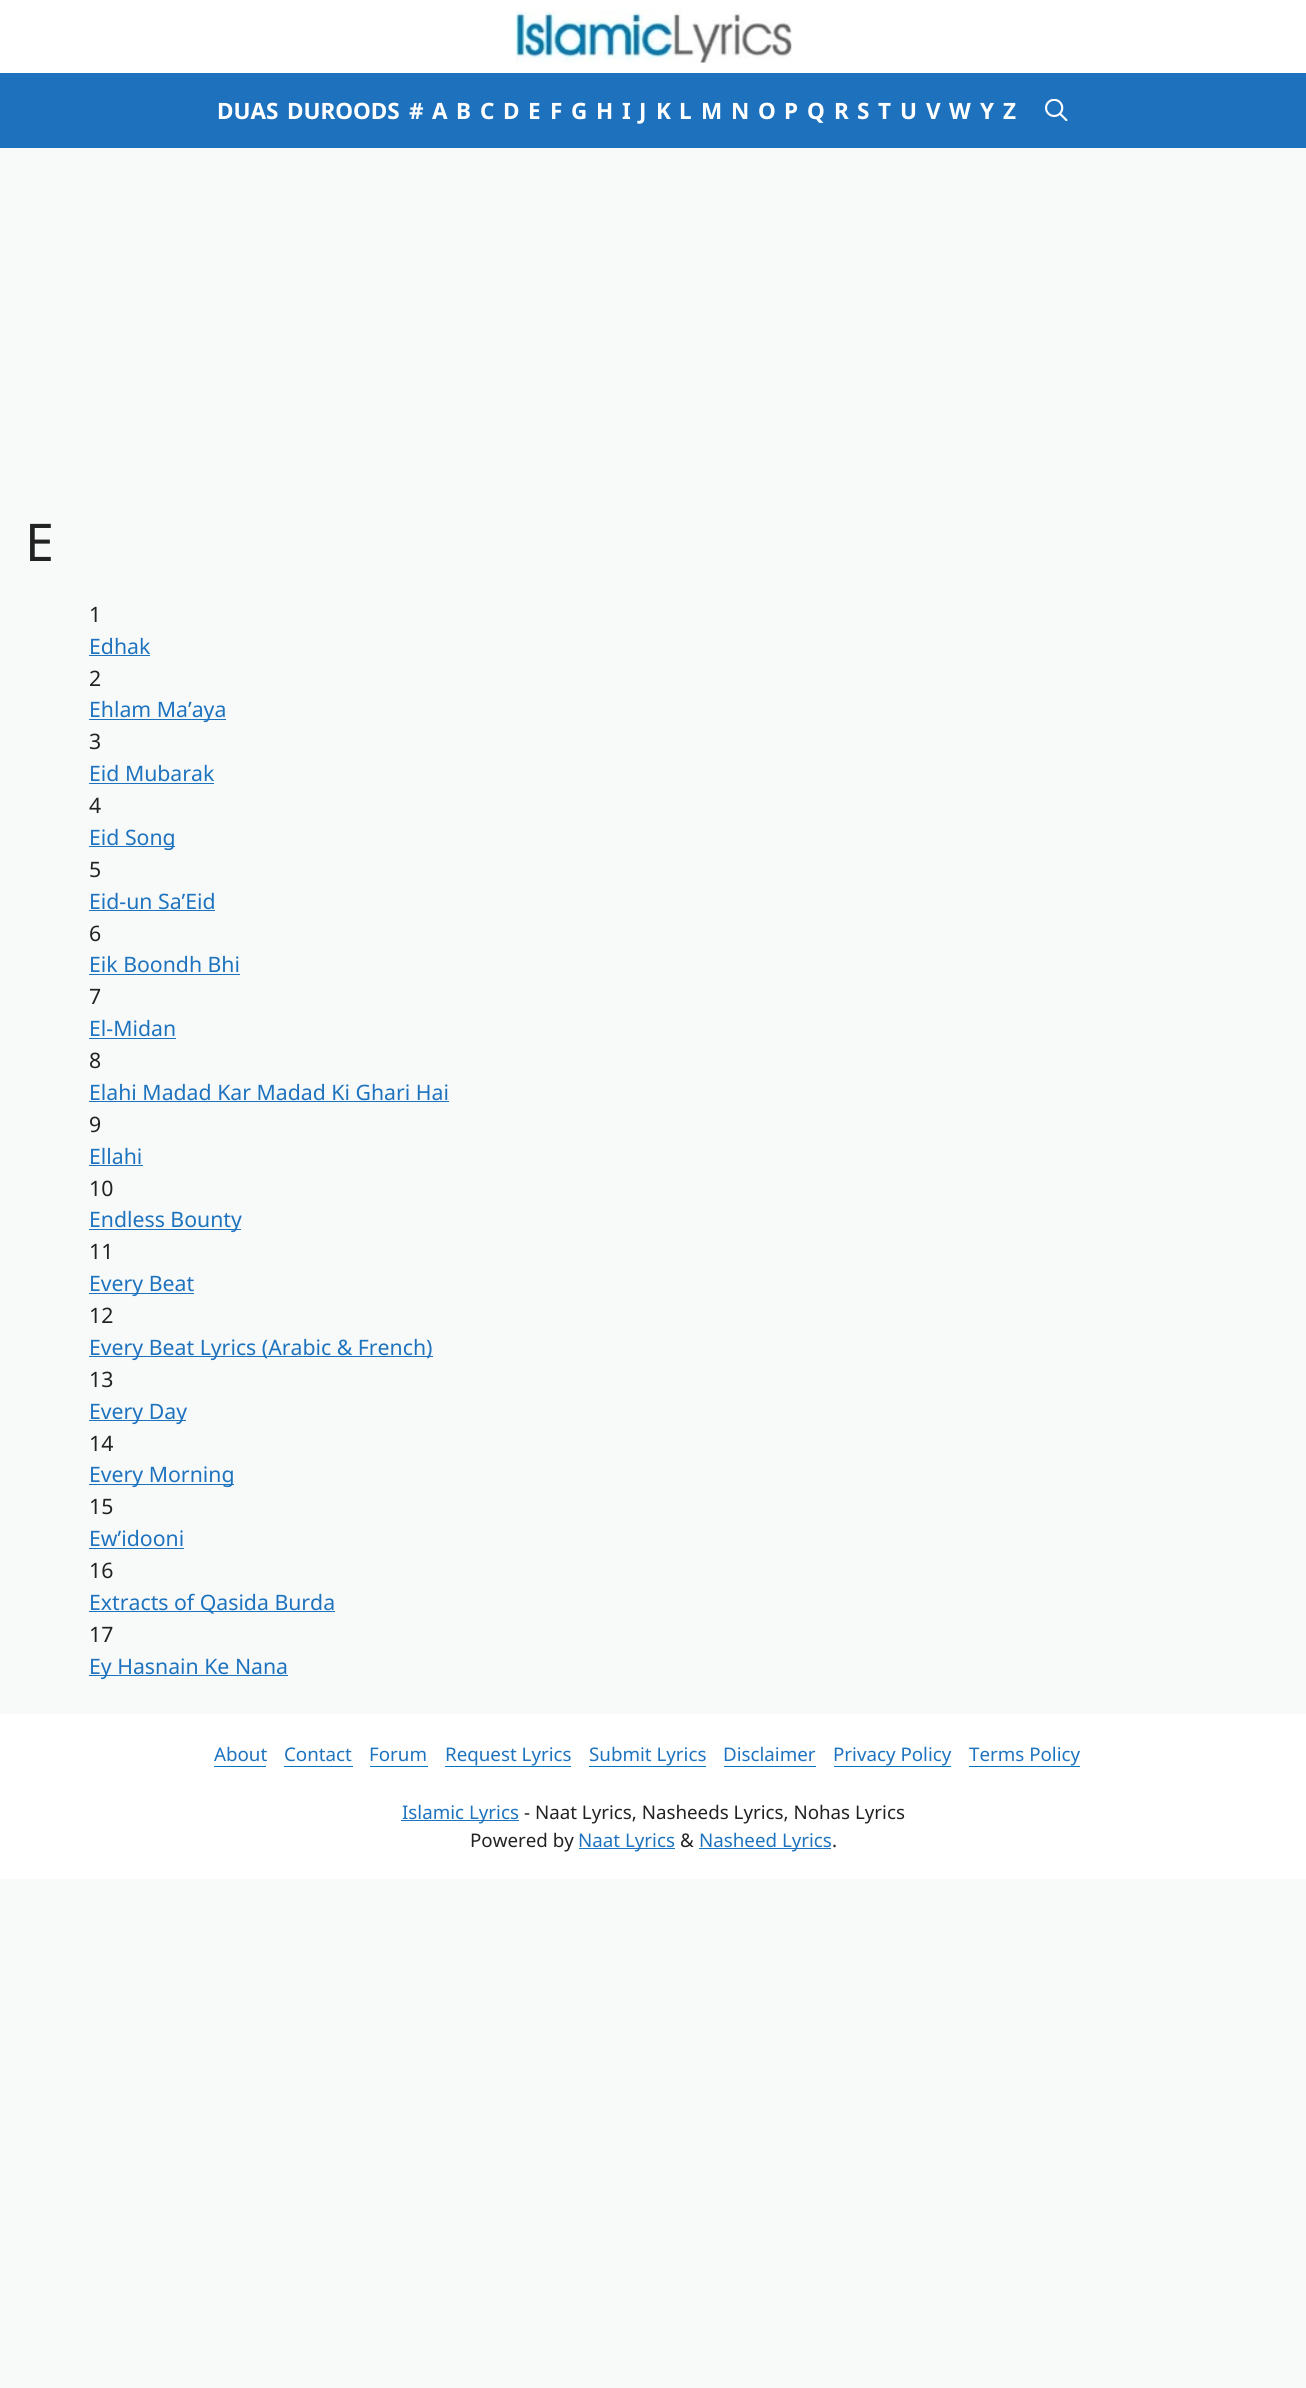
import math
import cairo


def paste(ctx, path, x, y, w, h):
	ctx.save()
	ctx.set_source_surface(cairo.ImageSurface.create_from_png(path), x, y)
	ctx.rectangle(x, y, w, h)
	ctx.fill()
	ctx.restore()

def draw(ctx):
	ctx.set_source_rgb(0.969, 0.973, 0.976)
	ctx.paint()
	ctx.set_source_rgb(1, 1, 1)
	ctx.rectangle(0, 0, 1306, 73)
	ctx.fill()
	paste(ctx, 'media/1.png', 516, 10, 276, 53)
	ctx.set_source_rgb(0.118, 0.447, 0.741)
	ctx.rectangle(0, 73, 1306, 75)
	ctx.fill()
	ctx.select_font_face('Noto Sans', cairo.FONT_SLANT_NORMAL, cairo.FONT_WEIGHT_BOLD)
	ctx.set_font_size(22.5)
	ctx.set_source_rgb(1, 1, 1)
	for x, y, s in [
		(217, 119, 'DUAS'),
		(287, 119, 'DUROODS'),
		(409, 119, '#'),
		(432, 119, 'A'),
		(456, 119, 'B'),
		(480, 119, 'C'),
		(503, 119, 'D'),
		(528, 119, 'E'),
		(550, 119, 'F'),
		(571, 119, 'G'),
		(596, 119, 'H'),
		(622, 119, 'I'),
		(639, 119, 'J'),
		(656, 119, 'K'),
		(679, 119, 'L'),
		(701, 119, 'M'),
		(731, 119, 'N'),
		(758, 119, 'O'),
		(784, 119, 'P'),
		(807, 119, 'Q'),
		(834, 119, 'R'),
		(857, 119, 'S'),
		(878, 119, 'T'),
		(900, 119, 'U'),
		(926, 119, 'V'),
		(949, 119, 'W'),
		(980, 119, 'Y'),
		(1003, 119, 'Z'),
	]:
		ctx.move_to(x, y)
		ctx.show_text(s)
	paste(ctx, 'media/2.png', 1045, 99, 23, 22)
	ctx.select_font_face('Noto Sans')
	ctx.set_font_size(52)
	ctx.set_source_rgb(0.133, 0.133, 0.133)
	ctx.move_to(25, 561)
	ctx.show_text('E')
	ctx.set_font_size(21.25)
	ctx.move_to(89, 622)
	ctx.show_text('1')
	ctx.set_source_rgb(0.118, 0.451, 0.745)
	ctx.move_to(89, 654)
	ctx.show_text('Edhak')
	ctx.rectangle(89, 655, 61, 1)
	ctx.fill()
	ctx.set_source_rgb(0.133, 0.133, 0.133)
	ctx.move_to(89, 686)
	ctx.show_text('2')
	ctx.set_source_rgb(0.118, 0.451, 0.745)
	ctx.rectangle(89, 719, 137, 1)
	ctx.fill()
	ctx.move_to(89, 717)
	ctx.show_text('Ehlam Ma’aya')
	ctx.set_source_rgb(0.133, 0.133, 0.133)
	ctx.move_to(89, 749)
	ctx.show_text('3')
	ctx.set_source_rgb(0.118, 0.451, 0.745)
	ctx.move_to(89, 781)
	ctx.show_text('Eid Mubarak')
	ctx.rectangle(89, 783, 125, 1)
	ctx.fill()
	ctx.set_source_rgb(0.133, 0.133, 0.133)
	ctx.move_to(89, 813)
	ctx.show_text('4')
	ctx.set_source_rgb(0.118, 0.451, 0.745)
	ctx.rectangle(89, 846, 86, 1)
	ctx.fill()
	ctx.move_to(89, 845)
	ctx.show_text('Eid Song')
	ctx.set_source_rgb(0.133, 0.133, 0.133)
	ctx.move_to(89, 877)
	ctx.show_text('5')
	ctx.set_source_rgb(0.118, 0.451, 0.745)
	ctx.move_to(89, 909)
	ctx.show_text('Eid-un Sa’Eid')
	ctx.rectangle(89, 910, 126, 1)
	ctx.fill()
	ctx.set_source_rgb(0.133, 0.133, 0.133)
	ctx.move_to(89, 941)
	ctx.show_text('6')
	ctx.set_source_rgb(0.118, 0.451, 0.745)
	ctx.move_to(89, 972)
	ctx.show_text('Eik Boondh Bhi')
	ctx.rectangle(89, 974, 151, 1)
	ctx.fill()
	ctx.set_source_rgb(0.133, 0.133, 0.133)
	ctx.move_to(89, 1004)
	ctx.show_text('7')
	ctx.set_source_rgb(0.118, 0.451, 0.745)
	ctx.move_to(89, 1036)
	ctx.show_text('El-Midan')
	ctx.rectangle(89, 1038, 87, 1)
	ctx.fill()
	ctx.set_source_rgb(0.133, 0.133, 0.133)
	ctx.move_to(89, 1068)
	ctx.show_text('8')
	ctx.set_source_rgb(0.118, 0.451, 0.745)
	ctx.move_to(89, 1100)
	ctx.show_text('Elahi Madad Kar Madad Ki Ghari Hai')
	ctx.rectangle(89, 1101, 360, 1)
	ctx.fill()
	ctx.set_source_rgb(0.133, 0.133, 0.133)
	ctx.move_to(89, 1132)
	ctx.show_text('9')
	ctx.set_source_rgb(0.118, 0.451, 0.745)
	ctx.move_to(89, 1164)
	ctx.show_text('Ellahi')
	ctx.rectangle(89, 1165, 54, 1)
	ctx.fill()
	ctx.set_source_rgb(0.133, 0.133, 0.133)
	ctx.move_to(89, 1196)
	ctx.show_text('10')
	ctx.set_source_rgb(0.118, 0.451, 0.745)
	ctx.rectangle(89, 1229, 152, 1)
	ctx.fill()
	ctx.move_to(89, 1227)
	ctx.show_text('Endless Bounty')
	ctx.set_source_rgb(0.133, 0.133, 0.133)
	ctx.move_to(89, 1259)
	ctx.show_text('11')
	ctx.set_source_rgb(0.118, 0.451, 0.745)
	ctx.rectangle(89, 1293, 105, 1)
	ctx.fill()
	ctx.move_to(89, 1291)
	ctx.show_text('Every Beat')
	ctx.set_source_rgb(0.133, 0.133, 0.133)
	ctx.move_to(89, 1323)
	ctx.show_text('12')
	ctx.set_source_rgb(0.118, 0.451, 0.745)
	ctx.rectangle(89, 1356, 344, 1)
	ctx.fill()
	ctx.move_to(89, 1355)
	ctx.show_text('Every Beat Lyrics (Arabic & French)')
	ctx.set_source_rgb(0.133, 0.133, 0.133)
	ctx.move_to(89, 1387)
	ctx.show_text('13')
	ctx.set_source_rgb(0.118, 0.451, 0.745)
	ctx.rectangle(89, 1420, 97, 1)
	ctx.fill()
	ctx.move_to(89, 1419)
	ctx.show_text('Every Day')
	ctx.set_source_rgb(0.133, 0.133, 0.133)
	ctx.move_to(89, 1451)
	ctx.show_text('14')
	ctx.set_source_rgb(0.118, 0.451, 0.745)
	ctx.rectangle(89, 1484, 145, 1)
	ctx.fill()
	ctx.move_to(89, 1482)
	ctx.show_text('Every Morning')
	ctx.set_source_rgb(0.133, 0.133, 0.133)
	ctx.move_to(89, 1514)
	ctx.show_text('15')
	ctx.set_source_rgb(0.118, 0.451, 0.745)
	ctx.move_to(89, 1546)
	ctx.show_text('Ew’idooni')
	ctx.rectangle(89, 1548, 95, 1)
	ctx.fill()
	ctx.set_source_rgb(0.133, 0.133, 0.133)
	ctx.move_to(89, 1578)
	ctx.show_text('16')
	ctx.set_source_rgb(0.118, 0.451, 0.745)
	ctx.rectangle(89, 1611, 246, 1)
	ctx.fill()
	ctx.move_to(89, 1610)
	ctx.show_text('Extracts of Qasida Burda')
	ctx.set_source_rgb(0.133, 0.133, 0.133)
	ctx.move_to(89, 1642)
	ctx.show_text('17')
	ctx.set_source_rgb(0.118, 0.451, 0.745)
	ctx.rectangle(89, 1675, 199, 1)
	ctx.fill()
	ctx.move_to(89, 1674)
	ctx.show_text('Ey Hasnain Ke Nana')
	ctx.set_source_rgb(1, 1, 1)
	ctx.rectangle(0, 1714, 1306, 165)
	ctx.fill()
	ctx.set_font_size(18.75)
	ctx.set_source_rgb(0.118, 0.451, 0.745)
	ctx.move_to(214, 1761)
	ctx.show_text('About')
	ctx.set_source_rgb(0.008, 0.455, 0.745)
	ctx.rectangle(214, 1766, 52, 1)
	ctx.fill()
	ctx.set_source_rgb(0.118, 0.451, 0.745)
	ctx.move_to(284, 1761)
	ctx.show_text('Contact')
	ctx.set_source_rgb(0.008, 0.455, 0.745)
	ctx.rectangle(284, 1766, 69, 1)
	ctx.fill()
	ctx.set_source_rgb(0.118, 0.451, 0.745)
	ctx.move_to(369, 1761)
	ctx.show_text('Forum')
	ctx.set_source_rgb(0.008, 0.455, 0.745)
	ctx.rectangle(370, 1766, 58, 1)
	ctx.fill()
	ctx.set_source_rgb(0.118, 0.451, 0.745)
	ctx.move_to(445, 1761)
	ctx.show_text('Request Lyrics')
	ctx.set_source_rgb(0.008, 0.455, 0.745)
	ctx.rectangle(445, 1766, 126, 1)
	ctx.fill()
	ctx.set_source_rgb(0.118, 0.451, 0.745)
	ctx.move_to(589, 1761)
	ctx.show_text('Submit Lyrics')
	ctx.set_source_rgb(0.008, 0.455, 0.745)
	ctx.rectangle(589, 1766, 117, 1)
	ctx.fill()
	ctx.set_source_rgb(0.118, 0.451, 0.745)
	ctx.move_to(723, 1761)
	ctx.show_text('Disclaimer')
	ctx.set_source_rgb(0.008, 0.455, 0.745)
	ctx.rectangle(724, 1766, 92, 1)
	ctx.fill()
	ctx.set_source_rgb(0.118, 0.451, 0.745)
	ctx.move_to(833, 1761)
	ctx.show_text('Privacy Policy')
	ctx.set_source_rgb(0.008, 0.455, 0.745)
	ctx.rectangle(834, 1766, 117, 1)
	ctx.fill()
	ctx.set_source_rgb(0.118, 0.451, 0.745)
	ctx.move_to(969, 1761)
	ctx.show_text('Terms Policy')
	ctx.set_source_rgb(0.008, 0.455, 0.745)
	ctx.rectangle(969, 1766, 111, 1)
	ctx.fill()
	ctx.set_source_rgb(0.118, 0.451, 0.745)
	ctx.rectangle(401, 1820, 118, 1)
	ctx.fill()
	ctx.move_to(402, 1819)
	ctx.show_text('Islamic Lyrics')
	ctx.set_source_rgb(0.133, 0.133, 0.133)
	ctx.move_to(524, 1819)
	ctx.show_text('- Naat Lyrics, Nasheeds Lyrics, Nohas Lyrics')
	ctx.move_to(470, 1847)
	ctx.show_text('Powered by')
	ctx.set_source_rgb(0.118, 0.451, 0.745)
	ctx.rectangle(579, 1848, 96, 1)
	ctx.fill()
	ctx.move_to(578, 1847)
	ctx.show_text('Naat Lyrics')
	ctx.set_source_rgb(0.133, 0.133, 0.133)
	ctx.move_to(680, 1847)
	ctx.show_text('&')
	ctx.set_source_rgb(0.118, 0.451, 0.745)
	ctx.rectangle(699, 1848, 132, 1)
	ctx.fill()
	ctx.move_to(699, 1847)
	ctx.show_text('Nasheed Lyrics')
	ctx.set_source_rgb(0.133, 0.133, 0.133)
	ctx.move_to(832, 1847)
	ctx.show_text('.')


surface = cairo.ImageSurface(cairo.FORMAT_RGB24, 1306, 2388)
ctx = cairo.Context(surface)
options = cairo.FontOptions()
options.set_hint_metrics(cairo.HINT_METRICS_OFF)
options.set_hint_style(cairo.HINT_STYLE_NONE)
ctx.set_font_options(options)
ctx.set_miter_limit(4)
draw(ctx)
surface.write_to_png('image.png')
